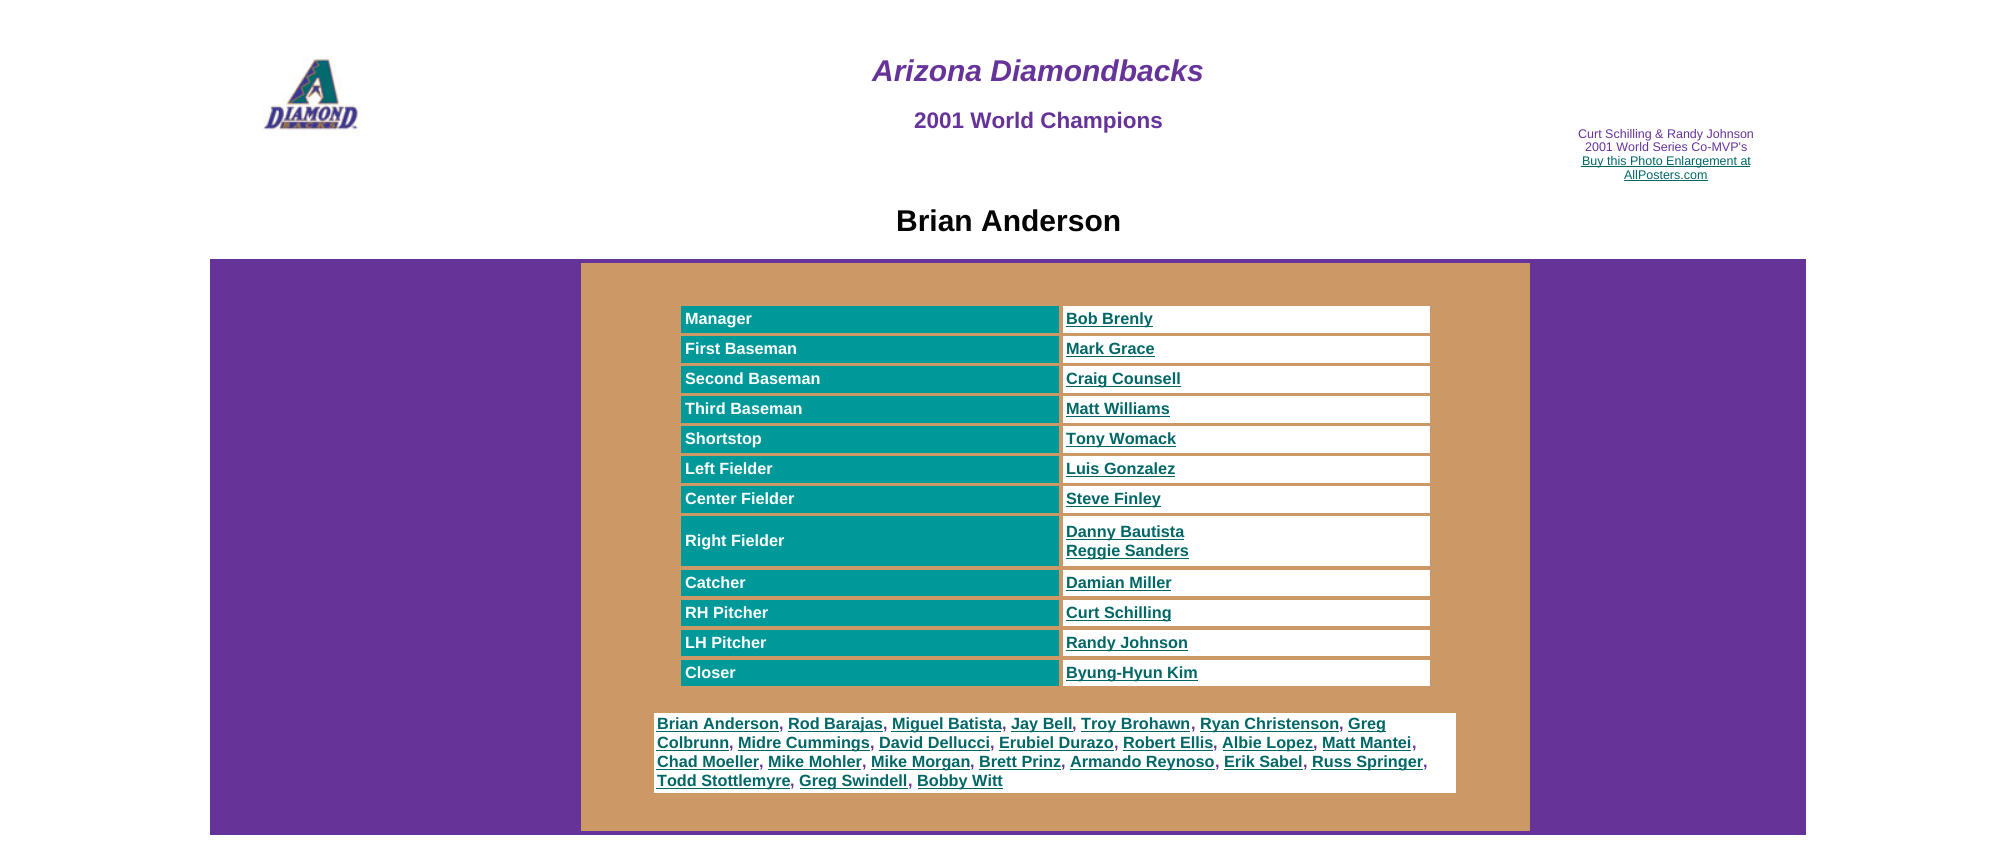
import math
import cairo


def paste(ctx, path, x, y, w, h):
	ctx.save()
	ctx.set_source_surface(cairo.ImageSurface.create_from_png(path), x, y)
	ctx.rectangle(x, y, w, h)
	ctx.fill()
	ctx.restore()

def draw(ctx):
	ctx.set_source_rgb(1, 1, 1)
	ctx.paint()
	paste(ctx, 'media/1.png', 262, 56, 100, 80)
	ctx.select_font_face('Liberation Sans', cairo.FONT_SLANT_ITALIC, cairo.FONT_WEIGHT_BOLD)
	ctx.set_font_size(30)
	ctx.set_source_rgb(0.4, 0.2, 0.6)
	ctx.move_to(872, 81)
	ctx.show_text('Arizona Diamondbacks')
	ctx.select_font_face('Liberation Sans', cairo.FONT_SLANT_NORMAL, cairo.FONT_WEIGHT_BOLD)
	ctx.set_font_size(22.5)
	ctx.move_to(914, 128)
	ctx.show_text('2001 World Champions')
	ctx.select_font_face('Liberation Sans')
	ctx.set_font_size(12.5)
	ctx.move_to(1578, 138)
	ctx.show_text('Curt Schilling & Randy Johnson')
	ctx.move_to(1585, 151)
	ctx.show_text('2001 World Series Co-MVP\'s')
	ctx.set_source_rgb(0, 0.4, 0.4)
	ctx.rectangle(1581, 166, 169, 1)
	ctx.fill()
	ctx.move_to(1582, 165)
	ctx.show_text('Buy this Photo Enlargement at')
	ctx.move_to(1624, 179)
	ctx.show_text('AllPosters.com')
	ctx.rectangle(1624, 180, 84, 1)
	ctx.fill()
	ctx.select_font_face('Liberation Sans', cairo.FONT_SLANT_NORMAL, cairo.FONT_WEIGHT_BOLD)
	ctx.set_font_size(30)
	ctx.set_source_rgb(0.016, 0.016, 0.016)
	ctx.move_to(896, 231)
	ctx.show_text('Brian Anderson')
	ctx.set_source_rgb(0.4, 0.2, 0.6)
	ctx.rectangle(210, 259, 1596, 576)
	ctx.fill()
	ctx.set_source_rgb(0.8, 0.6, 0.4)
	ctx.rectangle(581, 263, 949, 568)
	ctx.fill()
	ctx.set_source_rgb(0, 0.6, 0.6)
	ctx.rectangle(681, 306, 378, 27)
	ctx.fill()
	ctx.set_font_size(16.25)
	ctx.set_source_rgb(1, 1, 1)
	ctx.move_to(685, 324)
	ctx.show_text('Manager')
	ctx.rectangle(1063, 306, 367, 27)
	ctx.fill()
	ctx.set_source_rgb(0, 0.4, 0.4)
	ctx.rectangle(1066, 326, 87, 1)
	ctx.fill()
	ctx.move_to(1066, 324)
	ctx.show_text('Bob Brenly')
	ctx.set_source_rgb(0, 0.6, 0.6)
	ctx.rectangle(681, 336, 378, 27)
	ctx.fill()
	ctx.set_source_rgb(1, 1, 1)
	ctx.move_to(685, 354)
	ctx.show_text('First Baseman')
	ctx.rectangle(1063, 336, 367, 27)
	ctx.fill()
	ctx.set_source_rgb(0, 0.4, 0.4)
	ctx.move_to(1066, 354)
	ctx.show_text('Mark Grace')
	ctx.rectangle(1066, 356, 89, 1)
	ctx.fill()
	ctx.set_source_rgb(0, 0.6, 0.6)
	ctx.rectangle(681, 366, 378, 27)
	ctx.fill()
	ctx.set_source_rgb(1, 1, 1)
	ctx.move_to(685, 384)
	ctx.show_text('Second Baseman')
	ctx.rectangle(1063, 366, 367, 27)
	ctx.fill()
	ctx.set_source_rgb(0, 0.4, 0.4)
	ctx.rectangle(1066, 386, 115, 1)
	ctx.fill()
	ctx.move_to(1066, 384)
	ctx.show_text('Craig Counsell')
	ctx.set_source_rgb(0, 0.6, 0.6)
	ctx.rectangle(681, 396, 378, 27)
	ctx.fill()
	ctx.set_source_rgb(1, 1, 1)
	ctx.move_to(685, 414)
	ctx.show_text('Third Baseman')
	ctx.rectangle(1063, 396, 367, 27)
	ctx.fill()
	ctx.set_source_rgb(0, 0.4, 0.4)
	ctx.move_to(1066, 414)
	ctx.show_text('Matt Williams')
	ctx.rectangle(1066, 416, 104, 1)
	ctx.fill()
	ctx.set_source_rgb(0, 0.6, 0.6)
	ctx.rectangle(681, 426, 378, 27)
	ctx.fill()
	ctx.set_source_rgb(1, 1, 1)
	ctx.move_to(685, 444)
	ctx.show_text('Shortstop')
	ctx.rectangle(1063, 426, 367, 27)
	ctx.fill()
	ctx.set_source_rgb(0, 0.4, 0.4)
	ctx.rectangle(1066, 446, 110, 1)
	ctx.fill()
	ctx.move_to(1066, 444)
	ctx.show_text('Tony Womack')
	ctx.set_source_rgb(0, 0.6, 0.6)
	ctx.rectangle(681, 456, 378, 27)
	ctx.fill()
	ctx.set_source_rgb(1, 1, 1)
	ctx.move_to(685, 474)
	ctx.show_text('Left Fielder')
	ctx.rectangle(1063, 456, 367, 27)
	ctx.fill()
	ctx.set_source_rgb(0, 0.4, 0.4)
	ctx.move_to(1066, 474)
	ctx.show_text('Luis Gonzalez')
	ctx.rectangle(1066, 476, 109, 1)
	ctx.fill()
	ctx.set_source_rgb(0, 0.6, 0.6)
	ctx.rectangle(681, 486, 378, 27)
	ctx.fill()
	ctx.set_source_rgb(1, 1, 1)
	ctx.move_to(685, 504)
	ctx.show_text('Center Fielder')
	ctx.rectangle(1063, 486, 367, 27)
	ctx.fill()
	ctx.set_source_rgb(0, 0.4, 0.4)
	ctx.rectangle(1066, 506, 95, 1)
	ctx.fill()
	ctx.move_to(1066, 504)
	ctx.show_text('Steve Finley')
	ctx.set_source_rgb(0, 0.6, 0.6)
	ctx.rectangle(681, 516, 378, 50)
	ctx.fill()
	ctx.set_source_rgb(1, 1, 1)
	ctx.move_to(685, 546)
	ctx.show_text('Right Fielder')
	ctx.rectangle(1063, 516, 367, 50)
	ctx.fill()
	ctx.set_source_rgb(0, 0.4, 0.4)
	ctx.rectangle(1066, 539, 118, 1)
	ctx.fill()
	ctx.move_to(1066, 537)
	ctx.show_text('Danny Bautista')
	ctx.rectangle(1066, 558, 123, 1)
	ctx.fill()
	ctx.move_to(1066, 556)
	ctx.show_text('Reggie Sanders')
	ctx.set_source_rgb(0, 0.6, 0.6)
	ctx.rectangle(681, 570, 378, 26)
	ctx.fill()
	ctx.set_source_rgb(1, 1, 1)
	ctx.move_to(685, 588)
	ctx.show_text('Catcher')
	ctx.rectangle(1063, 570, 367, 26)
	ctx.fill()
	ctx.set_source_rgb(0, 0.4, 0.4)
	ctx.move_to(1066, 588)
	ctx.show_text('Damian Miller')
	ctx.rectangle(1066, 590, 105, 1)
	ctx.fill()
	ctx.set_source_rgb(0, 0.6, 0.6)
	ctx.rectangle(681, 600, 378, 26)
	ctx.fill()
	ctx.set_source_rgb(1, 1, 1)
	ctx.move_to(685, 618)
	ctx.show_text('RH Pitcher')
	ctx.rectangle(1063, 600, 367, 26)
	ctx.fill()
	ctx.set_source_rgb(0, 0.4, 0.4)
	ctx.rectangle(1066, 620, 105, 1)
	ctx.fill()
	ctx.move_to(1066, 618)
	ctx.show_text('Curt Schilling')
	ctx.set_source_rgb(0, 0.6, 0.6)
	ctx.rectangle(681, 630, 378, 26)
	ctx.fill()
	ctx.set_source_rgb(1, 1, 1)
	ctx.move_to(685, 648)
	ctx.show_text('LH Pitcher')
	ctx.rectangle(1063, 630, 367, 26)
	ctx.fill()
	ctx.set_source_rgb(0, 0.4, 0.4)
	ctx.rectangle(1066, 650, 122, 1)
	ctx.fill()
	ctx.move_to(1066, 648)
	ctx.show_text('Randy Johnson')
	ctx.set_source_rgb(0, 0.6, 0.6)
	ctx.rectangle(681, 660, 378, 26)
	ctx.fill()
	ctx.set_source_rgb(1, 1, 1)
	ctx.move_to(685, 678)
	ctx.show_text('Closer')
	ctx.rectangle(1063, 660, 367, 26)
	ctx.fill()
	ctx.set_source_rgb(0, 0.4, 0.4)
	ctx.rectangle(1066, 680, 132, 1)
	ctx.fill()
	ctx.move_to(1066, 678)
	ctx.show_text('Byung-Hyun Kim')
	ctx.set_source_rgb(1, 1, 1)
	ctx.rectangle(654, 713, 802, 80)
	ctx.fill()
	ctx.set_source_rgb(0, 0.4, 0.4)
	ctx.move_to(657, 729)
	ctx.show_text('Brian Anderson')
	ctx.set_source_rgb(0.4, 0.2, 0.6)
	ctx.move_to(779, 729)
	ctx.show_text(',')
	ctx.set_source_rgb(0, 0.4, 0.4)
	ctx.rectangle(656, 731, 123, 1)
	ctx.fill()
	ctx.rectangle(788, 731, 95, 1)
	ctx.fill()
	ctx.move_to(788, 729)
	ctx.show_text('Rod Barajas')
	ctx.set_source_rgb(0.4, 0.2, 0.6)
	ctx.move_to(883, 729)
	ctx.show_text(',')
	ctx.set_source_rgb(0, 0.4, 0.4)
	ctx.rectangle(891, 731, 110, 1)
	ctx.fill()
	ctx.move_to(892, 729)
	ctx.show_text('Miguel Batista')
	ctx.set_source_rgb(0.4, 0.2, 0.6)
	ctx.move_to(1002, 729)
	ctx.show_text(',')
	ctx.set_source_rgb(0, 0.4, 0.4)
	ctx.rectangle(1011, 731, 62, 1)
	ctx.fill()
	ctx.move_to(1011, 729)
	ctx.show_text('Jay Bell')
	ctx.set_source_rgb(0.4, 0.2, 0.6)
	ctx.move_to(1072, 729)
	ctx.show_text(',')
	ctx.set_source_rgb(0, 0.4, 0.4)
	ctx.rectangle(1081, 731, 109, 1)
	ctx.fill()
	ctx.move_to(1081, 729)
	ctx.show_text('Troy Brohawn')
	ctx.set_source_rgb(0.4, 0.2, 0.6)
	ctx.move_to(1191, 729)
	ctx.show_text(',')
	ctx.set_source_rgb(0, 0.4, 0.4)
	ctx.rectangle(1200, 731, 139, 1)
	ctx.fill()
	ctx.move_to(1200, 729)
	ctx.show_text('Ryan Christenson')
	ctx.set_source_rgb(0.4, 0.2, 0.6)
	ctx.move_to(1339, 729)
	ctx.show_text(',')
	ctx.set_source_rgb(0, 0.4, 0.4)
	ctx.rectangle(1348, 731, 38, 1)
	ctx.fill()
	ctx.move_to(1348, 729)
	ctx.show_text('Greg')
	ctx.move_to(657, 748)
	ctx.show_text('Colbrunn')
	ctx.set_source_rgb(0.4, 0.2, 0.6)
	ctx.move_to(729, 748)
	ctx.show_text(',')
	ctx.set_source_rgb(0, 0.4, 0.4)
	ctx.rectangle(656, 750, 73, 1)
	ctx.fill()
	ctx.rectangle(738, 750, 132, 1)
	ctx.fill()
	ctx.move_to(738, 748)
	ctx.show_text('Midre Cummings')
	ctx.set_source_rgb(0.4, 0.2, 0.6)
	ctx.move_to(870, 748)
	ctx.show_text(',')
	ctx.set_source_rgb(0, 0.4, 0.4)
	ctx.move_to(879, 748)
	ctx.show_text('David Dellucci')
	ctx.set_source_rgb(0.4, 0.2, 0.6)
	ctx.move_to(990, 748)
	ctx.show_text(',')
	ctx.set_source_rgb(0, 0.4, 0.4)
	ctx.rectangle(879, 750, 111, 1)
	ctx.fill()
	ctx.move_to(999, 748)
	ctx.show_text('Erubiel Durazo')
	ctx.set_source_rgb(0.4, 0.2, 0.6)
	ctx.move_to(1114, 748)
	ctx.show_text(',')
	ctx.set_source_rgb(0, 0.4, 0.4)
	ctx.rectangle(999, 750, 115, 1)
	ctx.fill()
	ctx.move_to(1123, 748)
	ctx.show_text('Robert Ellis')
	ctx.set_source_rgb(0.4, 0.2, 0.6)
	ctx.move_to(1213, 748)
	ctx.show_text(',')
	ctx.set_source_rgb(0, 0.4, 0.4)
	ctx.rectangle(1123, 750, 90, 1)
	ctx.fill()
	ctx.rectangle(1223, 750, 91, 1)
	ctx.fill()
	ctx.move_to(1222, 748)
	ctx.show_text('Albie Lopez')
	ctx.set_source_rgb(0.4, 0.2, 0.6)
	ctx.move_to(1313, 748)
	ctx.show_text(',')
	ctx.set_source_rgb(0, 0.4, 0.4)
	ctx.move_to(1322, 748)
	ctx.show_text('Matt Mantei')
	ctx.set_source_rgb(0.4, 0.2, 0.6)
	ctx.move_to(1412, 748)
	ctx.show_text(',')
	ctx.set_source_rgb(0, 0.4, 0.4)
	ctx.rectangle(1323, 750, 88, 1)
	ctx.fill()
	ctx.move_to(657, 767)
	ctx.show_text('Chad Moeller')
	ctx.set_source_rgb(0.4, 0.2, 0.6)
	ctx.move_to(759, 767)
	ctx.show_text(',')
	ctx.set_source_rgb(0, 0.4, 0.4)
	ctx.rectangle(656, 769, 103, 1)
	ctx.fill()
	ctx.move_to(768, 767)
	ctx.show_text('Mike Mohler')
	ctx.set_source_rgb(0.4, 0.2, 0.6)
	ctx.move_to(862, 767)
	ctx.show_text(',')
	ctx.set_source_rgb(0, 0.4, 0.4)
	ctx.rectangle(768, 769, 93, 1)
	ctx.fill()
	ctx.rectangle(871, 769, 99, 1)
	ctx.fill()
	ctx.move_to(871, 767)
	ctx.show_text('Mike Morgan')
	ctx.set_source_rgb(0.4, 0.2, 0.6)
	ctx.move_to(970, 767)
	ctx.show_text(',')
	ctx.set_source_rgb(0, 0.4, 0.4)
	ctx.move_to(979, 767)
	ctx.show_text('Brett Prinz')
	ctx.set_source_rgb(0.4, 0.2, 0.6)
	ctx.move_to(1061, 767)
	ctx.show_text(',')
	ctx.set_source_rgb(0, 0.4, 0.4)
	ctx.rectangle(979, 769, 82, 1)
	ctx.fill()
	ctx.rectangle(1070, 769, 145, 1)
	ctx.fill()
	ctx.move_to(1070, 767)
	ctx.show_text('Armando Reynoso')
	ctx.set_source_rgb(0.4, 0.2, 0.6)
	ctx.move_to(1215, 767)
	ctx.show_text(',')
	ctx.set_source_rgb(0, 0.4, 0.4)
	ctx.move_to(1224, 767)
	ctx.show_text('Erik Sabel')
	ctx.set_source_rgb(0.4, 0.2, 0.6)
	ctx.move_to(1303, 767)
	ctx.show_text(',')
	ctx.set_source_rgb(0, 0.4, 0.4)
	ctx.rectangle(1224, 769, 79, 1)
	ctx.fill()
	ctx.rectangle(1311, 769, 112, 1)
	ctx.fill()
	ctx.move_to(1312, 767)
	ctx.show_text('Russ Springer')
	ctx.set_source_rgb(0.4, 0.2, 0.6)
	ctx.move_to(1423, 767)
	ctx.show_text(',')
	ctx.set_source_rgb(0, 0.4, 0.4)
	ctx.rectangle(656, 788, 134, 1)
	ctx.fill()
	ctx.move_to(657, 786)
	ctx.show_text('Todd Stottlemyre')
	ctx.set_source_rgb(0.4, 0.2, 0.6)
	ctx.move_to(790, 786)
	ctx.show_text(',')
	ctx.set_source_rgb(0, 0.4, 0.4)
	ctx.rectangle(800, 788, 108, 1)
	ctx.fill()
	ctx.move_to(799, 786)
	ctx.show_text('Greg Swindell')
	ctx.set_source_rgb(0.4, 0.2, 0.6)
	ctx.move_to(908, 786)
	ctx.show_text(',')
	ctx.set_source_rgb(0, 0.4, 0.4)
	ctx.rectangle(918, 788, 85, 1)
	ctx.fill()
	ctx.move_to(917, 786)
	ctx.show_text('Bobby Witt')


surface = cairo.ImageSurface(cairo.FORMAT_RGB24, 2016, 850)
ctx = cairo.Context(surface)
options = cairo.FontOptions()
options.set_hint_metrics(cairo.HINT_METRICS_OFF)
options.set_hint_style(cairo.HINT_STYLE_NONE)
ctx.set_font_options(options)
ctx.set_miter_limit(4)
draw(ctx)
surface.write_to_png('image.png')
